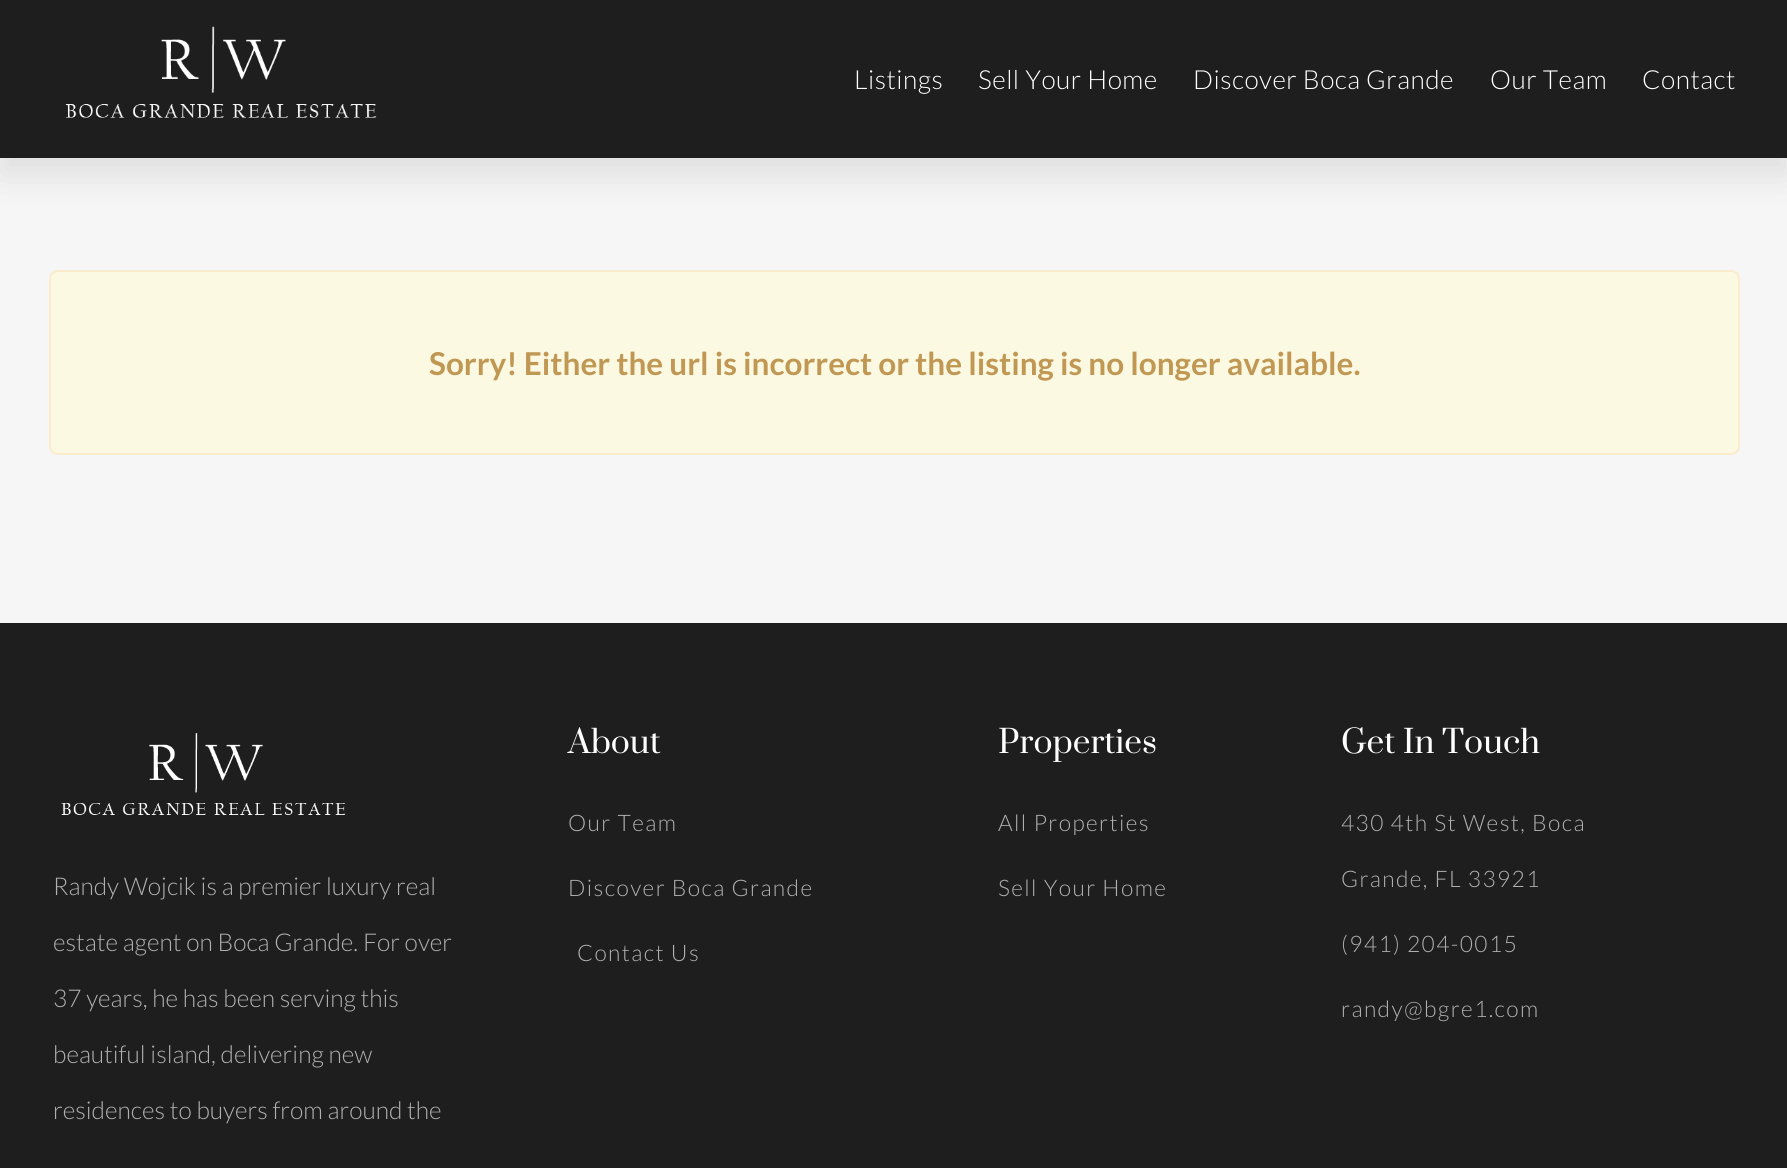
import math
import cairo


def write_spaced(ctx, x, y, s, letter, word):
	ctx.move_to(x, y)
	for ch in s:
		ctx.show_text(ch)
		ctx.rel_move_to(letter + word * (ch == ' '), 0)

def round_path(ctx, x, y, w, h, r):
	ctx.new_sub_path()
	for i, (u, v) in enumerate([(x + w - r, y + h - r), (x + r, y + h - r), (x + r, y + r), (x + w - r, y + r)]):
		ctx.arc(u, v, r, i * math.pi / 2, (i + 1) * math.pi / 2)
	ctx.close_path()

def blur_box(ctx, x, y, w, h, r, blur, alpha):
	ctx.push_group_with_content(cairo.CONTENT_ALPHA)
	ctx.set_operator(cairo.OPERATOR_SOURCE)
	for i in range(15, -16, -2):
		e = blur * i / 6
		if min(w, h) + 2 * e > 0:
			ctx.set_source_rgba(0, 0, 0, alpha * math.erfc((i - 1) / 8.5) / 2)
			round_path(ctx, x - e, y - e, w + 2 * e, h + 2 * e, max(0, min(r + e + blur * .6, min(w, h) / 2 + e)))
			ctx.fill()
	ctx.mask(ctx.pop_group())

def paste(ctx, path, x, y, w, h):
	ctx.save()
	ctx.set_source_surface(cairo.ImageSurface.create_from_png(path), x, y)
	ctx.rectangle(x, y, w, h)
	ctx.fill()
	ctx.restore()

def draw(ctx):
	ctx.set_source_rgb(0.961, 0.961, 0.961)
	ctx.paint()
	ctx.set_source_rgb(0, 0, 0)
	blur_box(ctx, 0, 18, 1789, 157, 0, 17.5, 0.1)
	ctx.set_source_rgb(0.118, 0.118, 0.118)
	ctx.rectangle(0, 0, 1787, 158)
	ctx.fill()
	paste(ctx, 'media/1.png', 65, 26, 312, 92)
	ctx.select_font_face('Lato Light')
	ctx.set_font_size(26.25)
	ctx.set_source_rgb(1, 1, 1)
	for x, y, s in [
		(854, 89, 'Listings'),
		(978, 89, 'Sell Your Home'),
		(1193, 89, 'Discover Boca Grande'),
		(1490, 89, 'Our Team'),
		(1642, 89, 'Contact'),
	]:
		write_spaced(ctx, x, y, s, 0.5, 0)
	ctx.set_source_rgb(0.988, 0.973, 0.89)
	round_path(ctx, 50, 271, 1689, 183, 8)
	ctx.fill_preserve()
	ctx.set_source_rgb(0.98, 0.922, 0.8)
	ctx.stroke()
	ctx.select_font_face('Lato', cairo.FONT_SLANT_NORMAL, cairo.FONT_WEIGHT_BOLD)
	ctx.set_font_size(31.5)
	ctx.set_source_rgb(0.753, 0.596, 0.325)
	ctx.move_to(429, 375)
	ctx.show_text('Sorry! Either the url is incorrect or the listing is no longer available.')
	ctx.set_source_rgb(0.118, 0.118, 0.118)
	ctx.rectangle(0, 623, 1787, 545)
	ctx.fill()
	paste(ctx, 'media/2.png', 61, 733, 285, 82)
	ctx.select_font_face('Lato Light')
	ctx.set_font_size(24.5)
	ctx.set_source_rgb(0.69, 0.69, 0.69)
	for x, y, s in [
		(53, 895, 'Randy Wojcik is a premier luxury real'),
		(53, 951, 'estate agent on Boca Grande. For over'),
		(53, 1007, '37 years, he has been serving this'),
		(53, 1063, 'beautiful island, delivering new'),
		(53, 1119, 'residences to buyers from around the'),
	]:
		ctx.move_to(x, y)
		ctx.show_text(s)
	ctx.select_font_face('Prata')
	ctx.set_font_size(31.5)
	ctx.set_source_rgb(1, 1, 1)
	ctx.move_to(568, 753)
	ctx.show_text('About')
	ctx.select_font_face('Lato Light')
	ctx.set_font_size(22.75)
	ctx.set_source_rgb(0.69, 0.69, 0.69)
	for x, y, s in [
		(568, 831, 'Our Team'),
		(568, 896, 'Discover Boca Grande'),
		(577, 961, 'Contact Us'),
	]:
		write_spaced(ctx, x, y, s, 1.4, 0)
	ctx.select_font_face('Prata')
	ctx.set_font_size(31.5)
	ctx.set_source_rgb(1, 1, 1)
	ctx.move_to(998, 753)
	ctx.show_text('Properties')
	ctx.select_font_face('Lato Light')
	ctx.set_font_size(22.75)
	ctx.set_source_rgb(0.69, 0.69, 0.69)
	write_spaced(ctx, 998, 831, 'All Properties', 1.4, 0)
	write_spaced(ctx, 998, 896, 'Sell Your Home', 1.4, 0)
	ctx.select_font_face('Prata')
	ctx.set_font_size(31.5)
	ctx.set_source_rgb(1, 1, 1)
	ctx.move_to(1341, 753)
	ctx.show_text('Get In Touch')
	ctx.select_font_face('Lato Light')
	ctx.set_font_size(22.75)
	ctx.set_source_rgb(0.69, 0.69, 0.69)
	for x, y, s in [
		(1341, 831, '430 4th St West, Boca'),
		(1341, 887, 'Grande, FL 33921'),
		(1341, 952, '(941) 204-0015'),
		(1341, 1017, 'randy@bgre1.com'),
	]:
		write_spaced(ctx, x, y, s, 1.4, 0)


surface = cairo.ImageSurface(cairo.FORMAT_RGB24, 1787, 1168)
ctx = cairo.Context(surface)
options = cairo.FontOptions()
options.set_hint_metrics(cairo.HINT_METRICS_OFF)
options.set_hint_style(cairo.HINT_STYLE_NONE)
ctx.set_font_options(options)
ctx.set_miter_limit(4)
draw(ctx)
surface.write_to_png('image.png')
